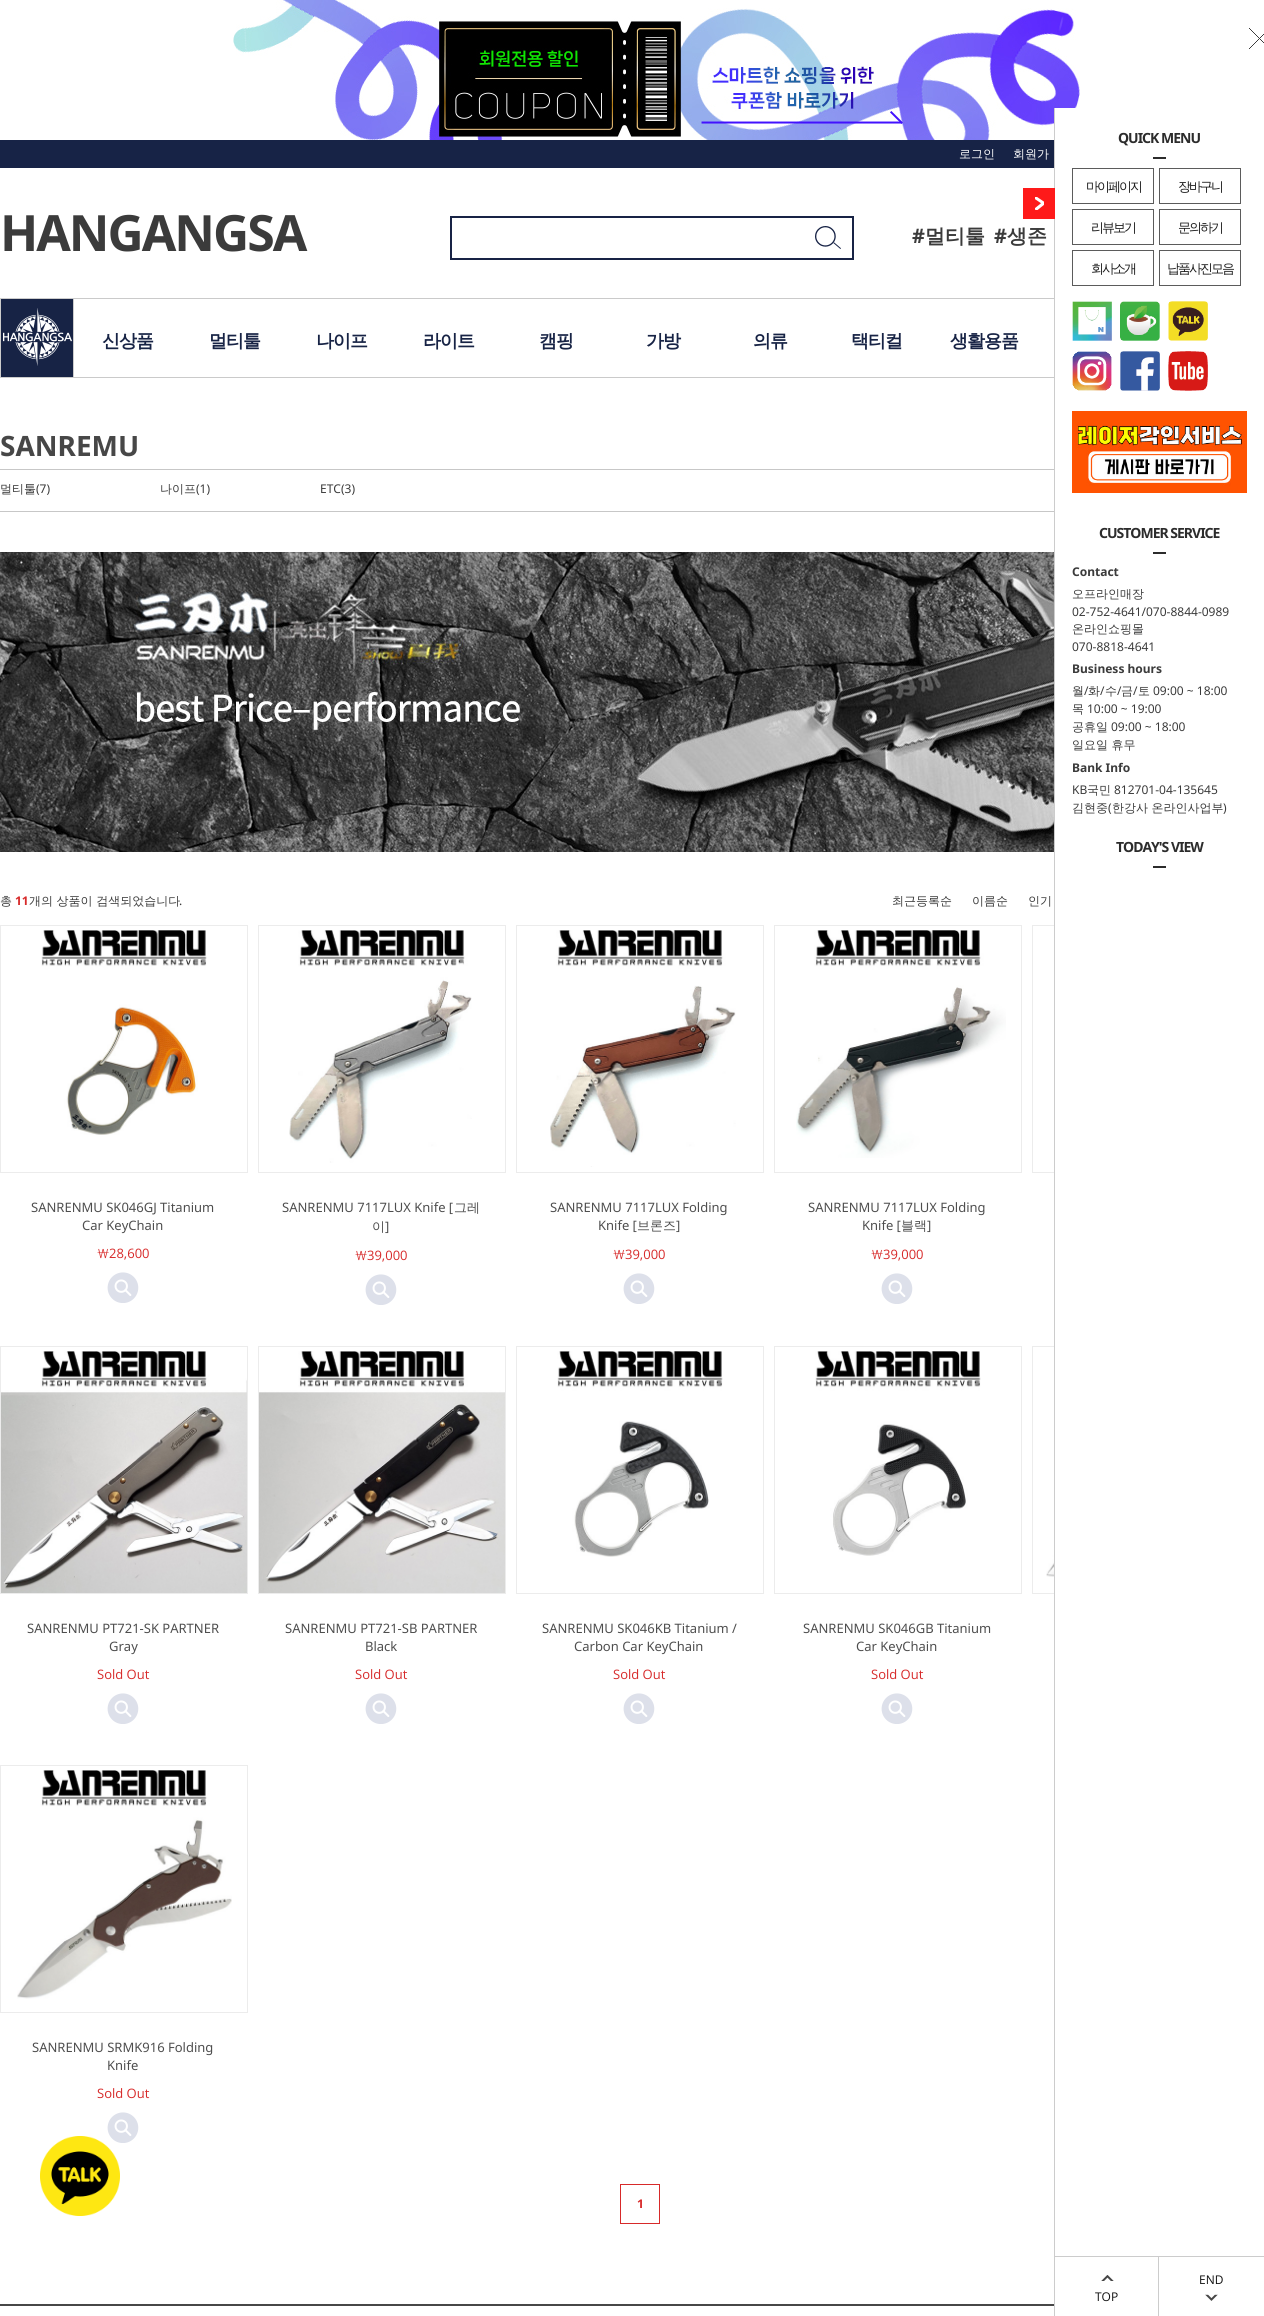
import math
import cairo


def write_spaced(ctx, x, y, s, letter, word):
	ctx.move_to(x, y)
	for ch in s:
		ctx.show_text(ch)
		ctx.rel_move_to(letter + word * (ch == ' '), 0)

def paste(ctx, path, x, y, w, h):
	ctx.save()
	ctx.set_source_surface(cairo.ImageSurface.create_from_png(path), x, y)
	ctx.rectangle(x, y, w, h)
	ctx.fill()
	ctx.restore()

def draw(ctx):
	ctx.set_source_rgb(1, 1, 1)
	ctx.paint()
	paste(ctx, 'media/1.png', 233, 0, 847, 140)
	paste(ctx, 'media/2.png', 1249, 28, 15, 21)
	ctx.set_source_rgb(0.09, 0.137, 0.275)
	ctx.rectangle(0, 140, 1054, 28)
	ctx.fill()
	ctx.select_font_face('WenQuanYi Zen Hei Medium')
	ctx.set_font_size(12)
	ctx.set_source_rgb(1, 1, 1)
	ctx.move_to(959, 158)
	ctx.show_text('로그인')
	ctx.move_to(1013, 158)
	ctx.show_text('회원가')
	ctx.select_font_face('Noto Sans', cairo.FONT_SLANT_NORMAL, cairo.FONT_WEIGHT_BOLD)
	ctx.set_font_size(50)
	ctx.set_source_rgb(0.231, 0.231, 0.231)
	write_spaced(ctx, 0, 251, 'HANGANGSA', -2, 0)
	ctx.rectangle(451, 217, 402, 42)
	ctx.set_source_rgb(0.094, 0.137, 0.271)
	ctx.stroke()
	paste(ctx, 'media/3.png', 815, 226, 26, 23)
	ctx.set_font_size(20)
	ctx.set_source_rgb(0.231, 0.231, 0.231)
	ctx.move_to(912, 243)
	ctx.show_text('#')
	ctx.select_font_face('WenQuanYi Zen Hei', cairo.FONT_SLANT_NORMAL, cairo.FONT_WEIGHT_BOLD)
	ctx.move_to(925, 243)
	ctx.show_text('멀티툴')
	ctx.select_font_face('Noto Sans', cairo.FONT_SLANT_NORMAL, cairo.FONT_WEIGHT_BOLD)
	ctx.move_to(994, 243)
	ctx.show_text('#')
	ctx.select_font_face('WenQuanYi Zen Hei', cairo.FONT_SLANT_NORMAL, cairo.FONT_WEIGHT_BOLD)
	ctx.move_to(1007, 243)
	ctx.show_text('생존')
	paste(ctx, 'media/8.png', 107, 2112, 32, 31)
	paste(ctx, 'media/4.png', 40, 2136, 80, 80)
	ctx.set_source_rgb(0.09, 0.137, 0.271)
	ctx.rectangle(0.5, 298.5, 73, 79)
	ctx.fill_preserve()
	ctx.set_source_rgb(0.8, 0.8, 0.8)
	ctx.set_line_width(1)
	ctx.stroke()
	paste(ctx, 'media/5.png', 3, 308, 69, 58)
	ctx.set_source_rgb(0.792, 0.792, 0.792)
	ctx.rectangle(74, 298, 980, 1)
	ctx.fill()
	ctx.rectangle(74, 377, 980, 1)
	ctx.fill()
	ctx.set_font_size(18)
	ctx.set_source_rgb(0.09, 0.137, 0.271)
	for x, y, s in [
		(102, 347, '신상품'),
		(209, 347, '멀티툴'),
		(316, 347, '나이프'),
		(423, 347, '라이트'),
		(539, 347, '캠핑'),
		(646, 347, '가방'),
		(753, 347, '의류'),
		(851, 347, '택티컬'),
		(950, 347, '생활용품'),
	]:
		write_spaced(ctx, x, y, s, -1, 0)
	ctx.select_font_face('Noto Sans', cairo.FONT_SLANT_NORMAL, cairo.FONT_WEIGHT_BOLD)
	ctx.set_font_size(28)
	ctx.set_source_rgb(0.278, 0.278, 0.278)
	ctx.move_to(0, 456)
	ctx.show_text('SANREMU')
	ctx.set_source_rgb(0.78, 0.78, 0.78)
	ctx.rectangle(0, 469, 1054, 1)
	ctx.fill()
	ctx.rectangle(0, 511, 1054, 1)
	ctx.fill()
	ctx.select_font_face('WenQuanYi Zen Hei Medium')
	ctx.set_font_size(12)
	ctx.set_source_rgb(0.231, 0.231, 0.231)
	ctx.move_to(0, 493)
	ctx.show_text('멀티툴')
	ctx.select_font_face('Noto Sans')
	ctx.move_to(36, 493)
	ctx.show_text('(7)')
	ctx.select_font_face('WenQuanYi Zen Hei Medium')
	ctx.move_to(160, 493)
	ctx.show_text('나이프')
	ctx.select_font_face('Noto Sans')
	ctx.move_to(196, 493)
	ctx.show_text('(1)')
	ctx.move_to(320, 493)
	ctx.show_text('ETC(3)')
	paste(ctx, 'media/6.png', 0, 552, 1054, 300)
	ctx.select_font_face('WenQuanYi Zen Hei Medium')
	ctx.move_to(0, 905)
	ctx.show_text('총')
	ctx.select_font_face('Noto Sans', cairo.FONT_SLANT_NORMAL, cairo.FONT_WEIGHT_BOLD)
	ctx.set_source_rgb(0.843, 0.165, 0.165)
	ctx.move_to(15, 905)
	ctx.show_text('11')
	ctx.select_font_face('WenQuanYi Zen Hei Medium')
	ctx.set_source_rgb(0.231, 0.231, 0.231)
	ctx.move_to(29, 905)
	ctx.show_text('개의 상품이 검색되었습니다')
	ctx.select_font_face('Noto Sans')
	ctx.move_to(179, 905)
	ctx.show_text('.')
	ctx.select_font_face('WenQuanYi Zen Hei Medium')
	for x, y, s in [
		(892, 905, '최근등록순'),
		(972, 905, '이름순'),
		(1028, 905, '인기'),
	]:
		ctx.move_to(x, y)
		ctx.show_text(s)
	ctx.rectangle(1032.5, 925.5, 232, 247)
	ctx.set_source_rgb(0.925, 0.925, 0.925)
	ctx.stroke()
	ctx.rectangle(0.5, 925.5, 247, 247)
	ctx.stroke()
	paste(ctx, 'media/7.png', 41, 930, 166, 205)
	ctx.select_font_face('Noto Sans')
	ctx.set_font_size(13)
	ctx.set_source_rgb(0.306, 0.306, 0.306)
	ctx.move_to(31, 1212)
	ctx.show_text('SANRENMU SK046GJ Titanium')
	ctx.move_to(82, 1230)
	ctx.show_text('Car KeyChain')
	ctx.select_font_face('NanumGothic')
	ctx.set_source_rgb(0.843, 0.165, 0.165)
	ctx.move_to(97, 1258)
	ctx.show_text('￦')
	ctx.select_font_face('Open Sans')
	ctx.move_to(109, 1258)
	ctx.show_text('28,600')
	paste(ctx, 'media/8.png', 107, 1272, 32, 31)
	ctx.rectangle(258.5, 925.5, 247, 247)
	ctx.set_source_rgb(0.925, 0.925, 0.925)
	ctx.stroke()
	paste(ctx, 'media/9.png', 289, 930, 183, 233)
	ctx.select_font_face('Noto Sans')
	ctx.set_source_rgb(0.306, 0.306, 0.306)
	ctx.move_to(282, 1212)
	ctx.show_text('SANRENMU 7117LUX Knife [')
	ctx.select_font_face('WenQuanYi Zen Hei Medium')
	ctx.move_to(454, 1212)
	ctx.show_text('그레')
	ctx.move_to(372, 1231)
	ctx.show_text('이')
	ctx.select_font_face('Noto Sans')
	ctx.move_to(385, 1231)
	ctx.show_text(']')
	ctx.select_font_face('NanumGothic')
	ctx.set_source_rgb(0.843, 0.165, 0.165)
	ctx.move_to(355, 1260)
	ctx.show_text('￦')
	ctx.select_font_face('Open Sans')
	ctx.move_to(367, 1260)
	ctx.show_text('39,000')
	paste(ctx, 'media/8.png', 365, 1274, 32, 31)
	ctx.rectangle(516.5, 925.5, 247, 247)
	ctx.set_source_rgb(0.925, 0.925, 0.925)
	ctx.stroke()
	paste(ctx, 'media/10.png', 550, 930, 186, 237)
	ctx.select_font_face('Noto Sans')
	ctx.set_source_rgb(0.306, 0.306, 0.306)
	ctx.move_to(550, 1212)
	ctx.show_text('SANRENMU 7117LUX Folding')
	ctx.move_to(598, 1230)
	ctx.show_text('Knife [')
	ctx.select_font_face('WenQuanYi Zen Hei Medium')
	ctx.move_to(637, 1230)
	ctx.show_text('브론즈')
	ctx.select_font_face('Noto Sans')
	ctx.move_to(676, 1230)
	ctx.show_text(']')
	ctx.select_font_face('NanumGothic')
	ctx.set_source_rgb(0.843, 0.165, 0.165)
	ctx.move_to(613, 1259)
	ctx.show_text('￦')
	ctx.select_font_face('Open Sans')
	ctx.move_to(625, 1259)
	ctx.show_text('39,000')
	paste(ctx, 'media/8.png', 623, 1273, 32, 31)
	ctx.rectangle(774.5, 925.5, 247, 247)
	ctx.set_source_rgb(0.925, 0.925, 0.925)
	ctx.stroke()
	paste(ctx, 'media/11.png', 796, 930, 210, 228)
	ctx.select_font_face('Noto Sans')
	ctx.set_source_rgb(0.306, 0.306, 0.306)
	ctx.move_to(808, 1212)
	ctx.show_text('SANRENMU 7117LUX Folding')
	ctx.move_to(862, 1230)
	ctx.show_text('Knife [')
	ctx.select_font_face('WenQuanYi Zen Hei Medium')
	ctx.move_to(901, 1230)
	ctx.show_text('블랙')
	ctx.select_font_face('Noto Sans')
	ctx.move_to(927, 1230)
	ctx.show_text(']')
	ctx.select_font_face('NanumGothic')
	ctx.set_source_rgb(0.843, 0.165, 0.165)
	ctx.move_to(871, 1259)
	ctx.show_text('￦')
	ctx.select_font_face('Open Sans')
	ctx.move_to(883, 1259)
	ctx.show_text('39,000')
	paste(ctx, 'media/8.png', 881, 1273, 32, 31)
	ctx.rectangle(1032.5, 1346.5, 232, 247)
	ctx.set_source_rgb(0.925, 0.925, 0.925)
	ctx.stroke()
	paste(ctx, 'media/12.png', 1046, 1351, 8, 226)
	ctx.rectangle(0.5, 1346.5, 247, 247)
	ctx.stroke()
	paste(ctx, 'media/13.png', 1, 1351, 246, 242)
	ctx.select_font_face('Noto Sans')
	ctx.set_source_rgb(0.306, 0.306, 0.306)
	ctx.move_to(27, 1633)
	ctx.show_text('SANRENMU PT721-SK PARTNER')
	ctx.move_to(109, 1651)
	ctx.show_text('Gray')
	ctx.select_font_face('Open Sans')
	ctx.set_source_rgb(0.843, 0.165, 0.165)
	ctx.move_to(97, 1679)
	ctx.show_text('Sold Out')
	paste(ctx, 'media/8.png', 107, 1693, 32, 31)
	ctx.rectangle(258.5, 1346.5, 247, 247)
	ctx.set_source_rgb(0.925, 0.925, 0.925)
	ctx.stroke()
	paste(ctx, 'media/14.png', 259, 1351, 246, 242)
	ctx.select_font_face('Noto Sans')
	ctx.set_source_rgb(0.306, 0.306, 0.306)
	ctx.move_to(285, 1633)
	ctx.show_text('SANRENMU PT721-SB PARTNER')
	ctx.move_to(365, 1651)
	ctx.show_text('Black')
	ctx.select_font_face('Open Sans')
	ctx.set_source_rgb(0.843, 0.165, 0.165)
	ctx.move_to(355, 1679)
	ctx.show_text('Sold Out')
	paste(ctx, 'media/8.png', 365, 1693, 32, 31)
	ctx.rectangle(516.5, 1346.5, 247, 247)
	ctx.set_source_rgb(0.925, 0.925, 0.925)
	ctx.stroke()
	paste(ctx, 'media/15.png', 557, 1351, 166, 206)
	ctx.select_font_face('Noto Sans')
	ctx.set_source_rgb(0.306, 0.306, 0.306)
	ctx.move_to(542, 1633)
	ctx.show_text('SANRENMU SK046KB Titanium /')
	ctx.move_to(574, 1651)
	ctx.show_text('Carbon Car KeyChain')
	ctx.select_font_face('Open Sans')
	ctx.set_source_rgb(0.843, 0.165, 0.165)
	ctx.move_to(613, 1679)
	ctx.show_text('Sold Out')
	paste(ctx, 'media/8.png', 623, 1693, 32, 31)
	ctx.rectangle(774.5, 1346.5, 247, 247)
	ctx.set_source_rgb(0.925, 0.925, 0.925)
	ctx.stroke()
	paste(ctx, 'media/16.png', 815, 1351, 166, 205)
	ctx.select_font_face('Noto Sans')
	ctx.set_source_rgb(0.306, 0.306, 0.306)
	ctx.move_to(803, 1633)
	ctx.show_text('SANRENMU SK046GB Titanium')
	ctx.move_to(856, 1651)
	ctx.show_text('Car KeyChain')
	ctx.select_font_face('Open Sans')
	ctx.set_source_rgb(0.843, 0.165, 0.165)
	ctx.move_to(871, 1679)
	ctx.show_text('Sold Out')
	paste(ctx, 'media/8.png', 881, 1693, 32, 31)
	ctx.rectangle(0.5, 1765.5, 247, 247)
	ctx.set_source_rgb(0.925, 0.925, 0.925)
	ctx.stroke()
	paste(ctx, 'media/17.png', 17, 1770, 215, 229)
	ctx.select_font_face('Noto Sans')
	ctx.set_source_rgb(0.306, 0.306, 0.306)
	ctx.move_to(32, 2052)
	ctx.show_text('SANRENMU SRMK916 Folding')
	ctx.move_to(107, 2070)
	ctx.show_text('Knife')
	ctx.select_font_face('Open Sans')
	ctx.set_source_rgb(0.843, 0.165, 0.165)
	ctx.move_to(97, 2098)
	ctx.show_text('Sold Out')
	ctx.rectangle(620.5, 2184.5, 39, 39)
	ctx.stroke()
	ctx.select_font_face('Noto Sans', cairo.FONT_SLANT_NORMAL, cairo.FONT_WEIGHT_BOLD)
	ctx.set_font_size(12)
	ctx.move_to(637, 2208)
	ctx.show_text('1')
	ctx.set_source_rgb(0.278, 0.278, 0.278)
	ctx.rectangle(0, 2304, 1054, 2)
	ctx.fill()
	ctx.set_source_rgb(1, 1, 1)
	ctx.rectangle(1055, 108, 209, 1486)
	ctx.fill()
	ctx.set_source_rgb(0.8, 0.8, 0.8)
	ctx.rectangle(1054, 108, 1, 2208)
	ctx.fill()
	ctx.set_source_rgb(0.996, 0.102, 0.102)
	ctx.rectangle(1023, 188, 32, 31)
	ctx.fill()
	paste(ctx, 'media/18.png', 1035, 197, 9, 13)
	ctx.set_font_size(14)
	ctx.set_source_rgb(0.173, 0.173, 0.173)
	write_spaced(ctx, 1118, 143, 'QUICK MENU', -1, 0)
	ctx.rectangle(1153, 157, 13, 2)
	ctx.fill()
	ctx.rectangle(1072.5, 168.5, 81, 35)
	ctx.set_source_rgb(0.357, 0.357, 0.357)
	ctx.stroke()
	ctx.select_font_face('WenQuanYi Zen Hei Medium')
	ctx.set_font_size(13)
	ctx.set_source_rgb(0.106, 0.106, 0.106)
	write_spaced(ctx, 1086, 191, '마이페이지', -2, 0)
	ctx.rectangle(1159.5, 168.5, 81, 35)
	ctx.set_source_rgb(0.357, 0.357, 0.357)
	ctx.stroke()
	ctx.set_source_rgb(0.106, 0.106, 0.106)
	write_spaced(ctx, 1178, 191, '장바구니', -2, 0)
	ctx.rectangle(1072.5, 209.5, 81, 35)
	ctx.set_source_rgb(0.357, 0.357, 0.357)
	ctx.stroke()
	ctx.set_source_rgb(0.106, 0.106, 0.106)
	write_spaced(ctx, 1091, 232, '리뷰보기', -2, 0)
	ctx.rectangle(1159.5, 209.5, 81, 35)
	ctx.set_source_rgb(0.357, 0.357, 0.357)
	ctx.stroke()
	ctx.set_source_rgb(0.106, 0.106, 0.106)
	write_spaced(ctx, 1178, 232, '문의하기', -2, 0)
	ctx.rectangle(1072.5, 250.5, 81, 35)
	ctx.set_source_rgb(0.357, 0.357, 0.357)
	ctx.stroke()
	ctx.set_source_rgb(0.106, 0.106, 0.106)
	write_spaced(ctx, 1091, 273, '회사소개', -2, 0)
	ctx.rectangle(1159.5, 250.5, 81, 35)
	ctx.set_source_rgb(0.357, 0.357, 0.357)
	ctx.stroke()
	ctx.set_source_rgb(0.106, 0.106, 0.106)
	write_spaced(ctx, 1167, 273, '납품사진모음', -2, 0)
	paste(ctx, 'media/19.png', 1072, 301, 40, 40)
	paste(ctx, 'media/20.png', 1120, 301, 40, 40)
	paste(ctx, 'media/21.png', 1168, 301, 40, 40)
	paste(ctx, 'media/22.png', 1072, 351, 40, 40)
	paste(ctx, 'media/23.png', 1120, 351, 40, 40)
	paste(ctx, 'media/24.png', 1168, 351, 40, 40)
	paste(ctx, 'media/25.png', 1072, 411, 175, 82)
	ctx.select_font_face('Noto Sans', cairo.FONT_SLANT_NORMAL, cairo.FONT_WEIGHT_BOLD)
	ctx.set_font_size(14)
	ctx.set_source_rgb(0.173, 0.173, 0.173)
	write_spaced(ctx, 1099, 538, 'CUSTOMER SERVICE', -1, 0)
	ctx.rectangle(1153, 552, 13, 2)
	ctx.fill()
	ctx.set_font_size(12)
	ctx.set_source_rgb(0.231, 0.231, 0.231)
	ctx.move_to(1072, 576)
	ctx.show_text('Contact')
	ctx.select_font_face('WenQuanYi Zen Hei Medium')
	ctx.move_to(1072, 598)
	ctx.show_text('오프라인매장')
	ctx.select_font_face('Noto Sans')
	ctx.move_to(1072, 616)
	ctx.show_text('02-752-4641/070-8844-0989')
	ctx.select_font_face('WenQuanYi Zen Hei Medium')
	ctx.move_to(1072, 633)
	ctx.show_text('온라인쇼핑몰')
	ctx.select_font_face('Noto Sans')
	ctx.move_to(1072, 651)
	ctx.show_text('070-8818-4641')
	ctx.select_font_face('Noto Sans', cairo.FONT_SLANT_NORMAL, cairo.FONT_WEIGHT_BOLD)
	ctx.move_to(1072, 673)
	ctx.show_text('Business hours')
	ctx.select_font_face('WenQuanYi Zen Hei Medium')
	ctx.move_to(1072, 695)
	ctx.show_text('월')
	ctx.select_font_face('Noto Sans')
	ctx.move_to(1084, 695)
	ctx.show_text('/')
	ctx.select_font_face('WenQuanYi Zen Hei Medium')
	ctx.move_to(1088, 695)
	ctx.show_text('화')
	ctx.select_font_face('Noto Sans')
	ctx.move_to(1100, 695)
	ctx.show_text('/')
	ctx.select_font_face('WenQuanYi Zen Hei Medium')
	ctx.move_to(1105, 695)
	ctx.show_text('수')
	ctx.select_font_face('Noto Sans')
	ctx.move_to(1117, 695)
	ctx.show_text('/')
	ctx.select_font_face('WenQuanYi Zen Hei Medium')
	ctx.move_to(1121, 695)
	ctx.show_text('금')
	ctx.select_font_face('Noto Sans')
	ctx.move_to(1133, 695)
	ctx.show_text('/')
	ctx.select_font_face('WenQuanYi Zen Hei Medium')
	ctx.move_to(1138, 695)
	ctx.show_text('토')
	ctx.select_font_face('Noto Sans')
	ctx.move_to(1153, 695)
	ctx.show_text('09:00 ~ 18:00')
	ctx.select_font_face('WenQuanYi Zen Hei Medium')
	ctx.move_to(1072, 713)
	ctx.show_text('목')
	ctx.select_font_face('Noto Sans')
	ctx.move_to(1087, 713)
	ctx.show_text('10:00 ~ 19:00')
	ctx.select_font_face('WenQuanYi Zen Hei Medium')
	ctx.move_to(1072, 731)
	ctx.show_text('공휴일')
	ctx.select_font_face('Noto Sans')
	ctx.move_to(1111, 731)
	ctx.show_text('09:00 ~ 18:00')
	ctx.select_font_face('WenQuanYi Zen Hei Medium')
	ctx.move_to(1072, 749)
	ctx.show_text('일요일 휴무')
	ctx.select_font_face('Noto Sans', cairo.FONT_SLANT_NORMAL, cairo.FONT_WEIGHT_BOLD)
	ctx.move_to(1072, 772)
	ctx.show_text('Bank Info')
	ctx.select_font_face('Noto Sans')
	ctx.move_to(1072, 794)
	ctx.show_text('KB')
	ctx.select_font_face('WenQuanYi Zen Hei Medium')
	ctx.move_to(1087, 794)
	ctx.show_text('국민')
	ctx.select_font_face('Noto Sans')
	ctx.move_to(1114, 794)
	ctx.show_text('812701-04-135645')
	ctx.select_font_face('WenQuanYi Zen Hei Medium')
	ctx.move_to(1072, 812)
	ctx.show_text('김현중')
	ctx.select_font_face('Noto Sans')
	ctx.move_to(1108, 812)
	ctx.show_text('(')
	ctx.select_font_face('WenQuanYi Zen Hei Medium')
	ctx.move_to(1112, 812)
	ctx.show_text('한강사 온라인사업부')
	ctx.select_font_face('Noto Sans')
	ctx.move_to(1223, 812)
	ctx.show_text(')')
	ctx.select_font_face('Noto Sans', cairo.FONT_SLANT_NORMAL, cairo.FONT_WEIGHT_BOLD)
	ctx.set_font_size(14)
	ctx.set_source_rgb(0.173, 0.173, 0.173)
	write_spaced(ctx, 1116, 852, 'TODAY\'S VIEW', -1, 0)
	ctx.rectangle(1153, 866, 13, 2)
	ctx.fill()
	ctx.set_source_rgb(0.8, 0.8, 0.8)
	ctx.rectangle(1055, 2256, 209, 1)
	ctx.rectangle(1158, 2257, 1, 59)
	ctx.fill()
	ctx.select_font_face('Open Sans')
	ctx.set_font_size(12)
	ctx.set_source_rgb(0.067, 0.067, 0.067)
	ctx.move_to(1199, 2284)
	ctx.show_text('END')
	paste(ctx, 'media/26.png', 1205, 2294, 13, 7)
	paste(ctx, 'media/27.png', 1101, 2275, 13, 6)
	ctx.move_to(1095, 2301)
	ctx.show_text('TOP')


surface = cairo.ImageSurface(cairo.FORMAT_RGB24, 1264, 2316)
ctx = cairo.Context(surface)
options = cairo.FontOptions()
options.set_hint_metrics(cairo.HINT_METRICS_OFF)
options.set_hint_style(cairo.HINT_STYLE_NONE)
ctx.set_font_options(options)
ctx.set_miter_limit(4)
draw(ctx)
surface.write_to_png('image.png')
